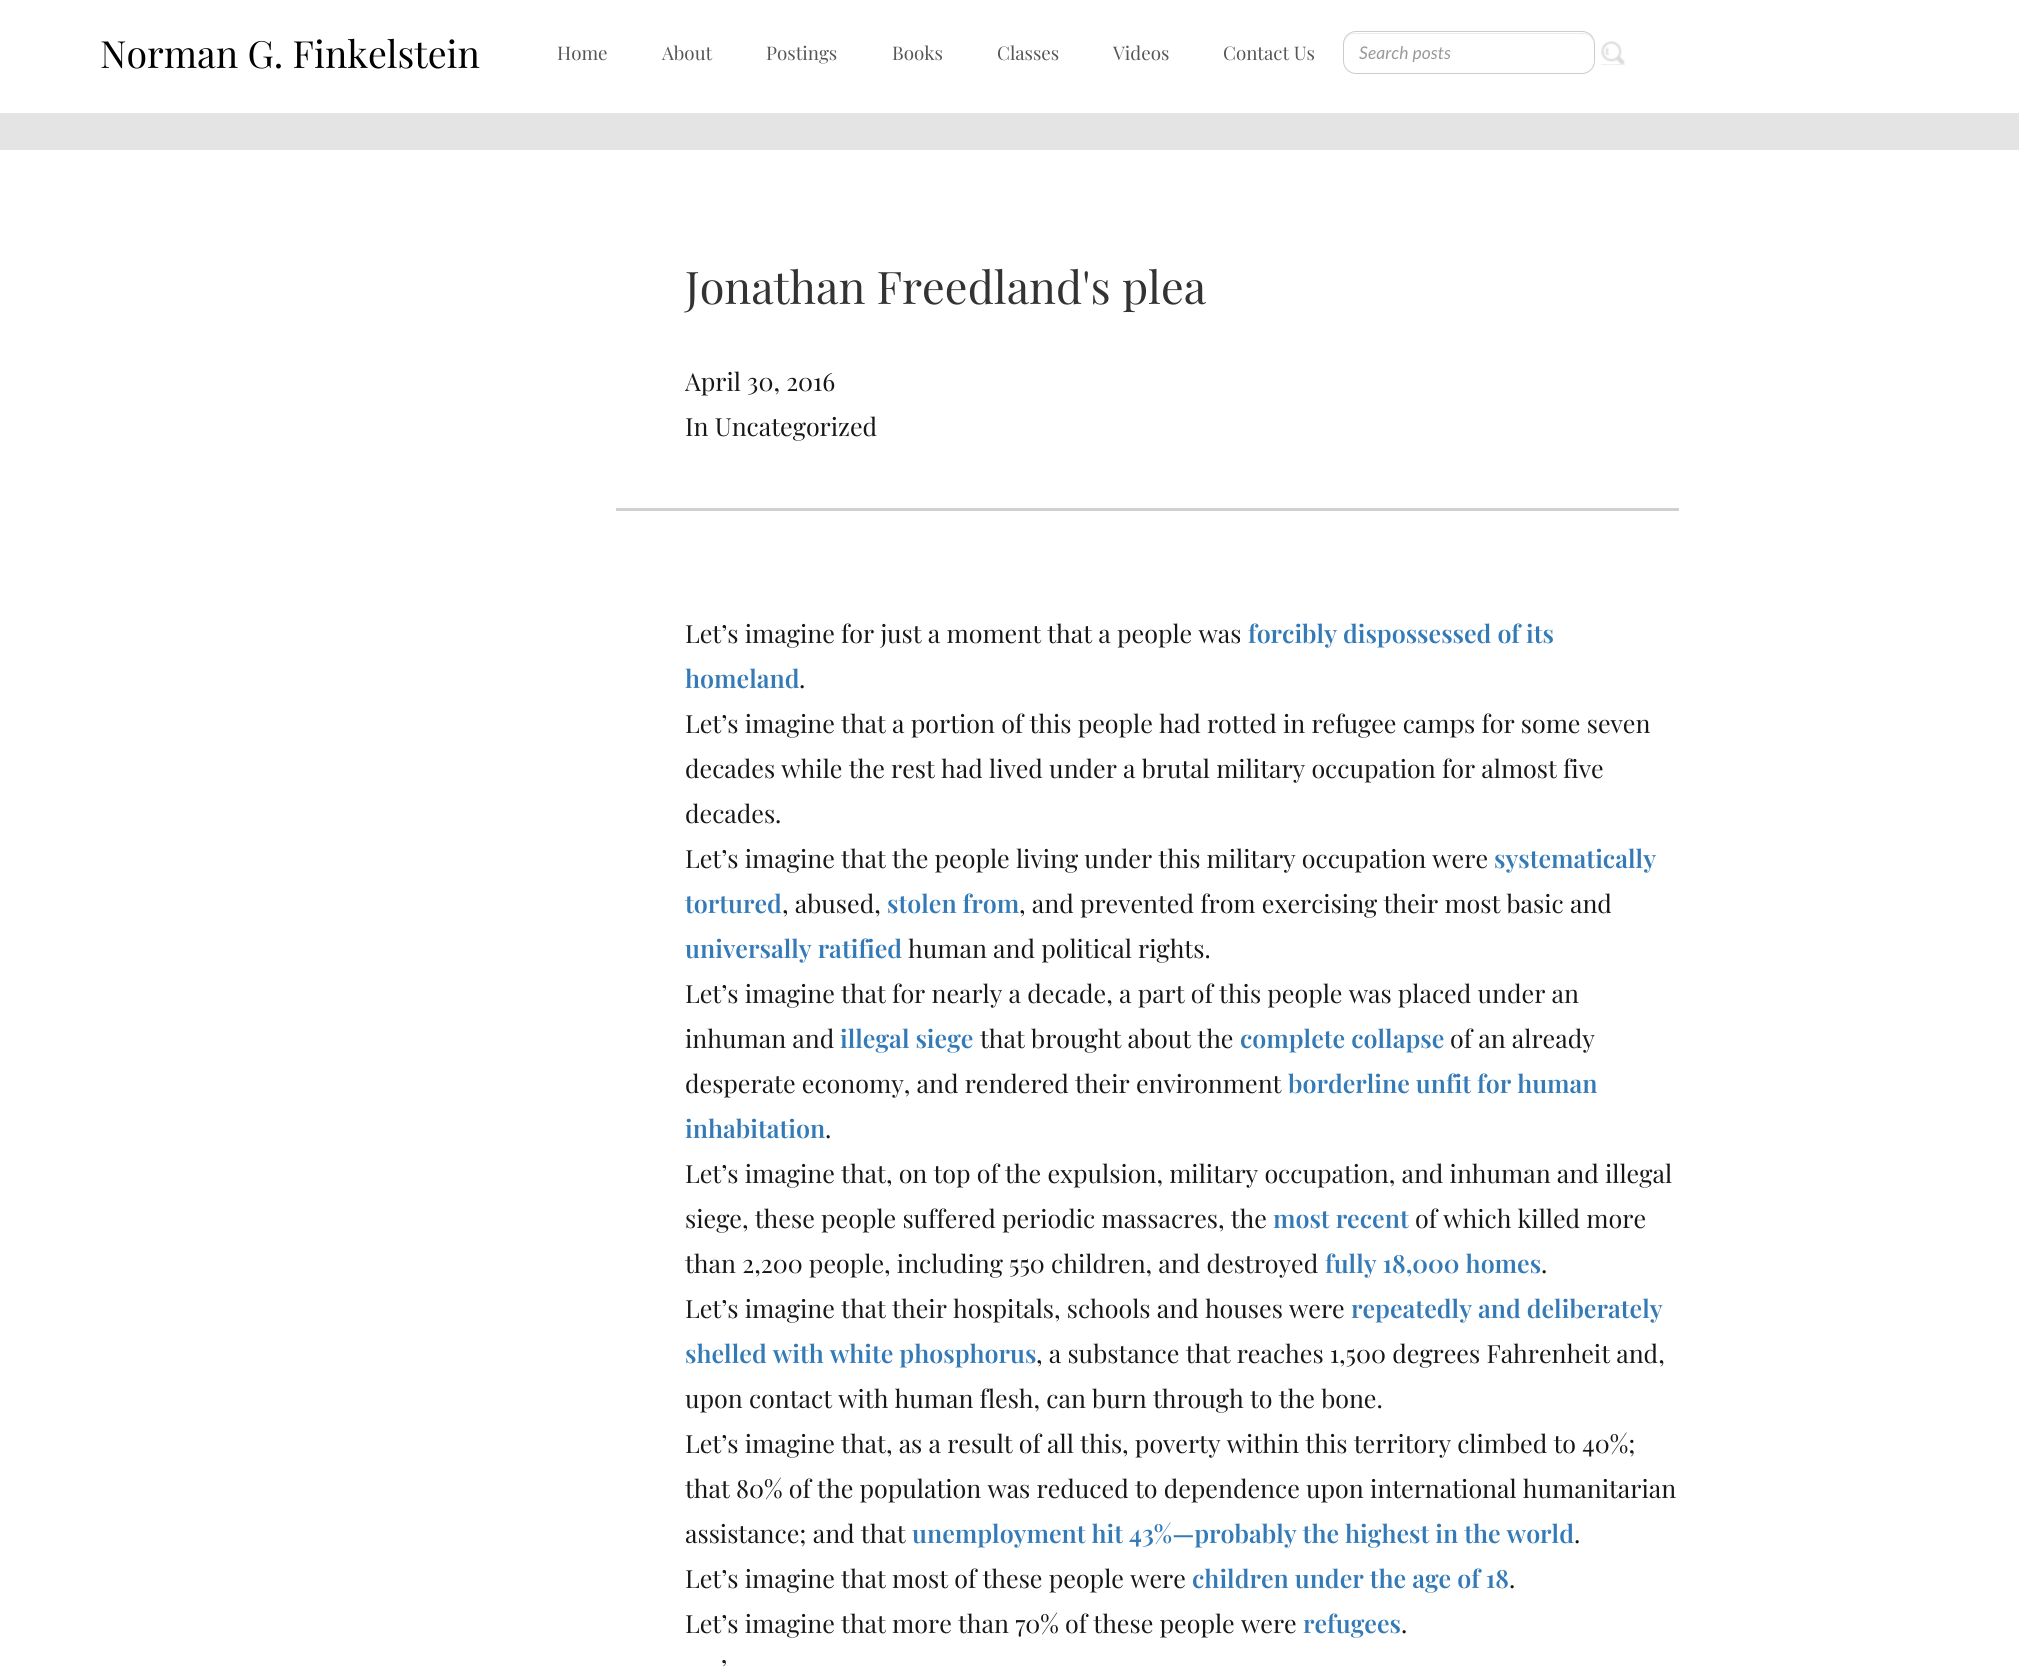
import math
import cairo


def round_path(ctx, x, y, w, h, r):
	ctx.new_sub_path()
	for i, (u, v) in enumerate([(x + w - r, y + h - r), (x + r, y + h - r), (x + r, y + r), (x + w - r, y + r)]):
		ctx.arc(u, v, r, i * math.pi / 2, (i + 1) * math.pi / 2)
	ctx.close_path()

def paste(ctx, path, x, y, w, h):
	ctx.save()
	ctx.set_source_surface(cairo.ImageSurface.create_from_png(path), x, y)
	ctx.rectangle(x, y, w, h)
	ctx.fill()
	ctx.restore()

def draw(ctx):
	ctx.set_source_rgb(1, 1, 1)
	ctx.paint()
	ctx.select_font_face('Playfair Display')
	ctx.set_font_size(37.5)
	ctx.set_source_rgb(0, 0, 0)
	ctx.move_to(100, 68)
	ctx.show_text('Norman G. Finkelstein')
	ctx.set_font_size(18.75)
	ctx.set_source_rgb(0.337, 0.337, 0.337)
	for x, y, s in [
		(557, 60, 'Home'),
		(662, 60, 'About'),
		(766, 60, 'Postings'),
		(892, 60, 'Books'),
		(997, 60, 'Classes'),
		(1113, 60, 'Videos'),
		(1223, 60, 'Contact Us'),
	]:
		ctx.move_to(x, y)
		ctx.show_text(s)
	ctx.set_source_rgb(0.925, 0.925, 0.925)
	ctx.new_path()
	ctx.move_to(1355, 34)
	ctx.line_to(1582, 34)
	ctx.curve_to(1589, 34, 1594, 39, 1594, 45)
	ctx.line_to(1594, 44)
	ctx.curve_to(1594, 38, 1589, 33, 1583, 33)
	ctx.line_to(1355, 33)
	ctx.curve_to(1349, 33, 1344, 38, 1344, 44)
	ctx.line_to(1344, 45)
	ctx.curve_to(1344, 39, 1349, 34, 1355, 34)
	ctx.close_path()
	ctx.fill()
	round_path(ctx, 1343.5, 31.5, 251, 42, 12.5)
	ctx.set_source_rgb(0.8, 0.8, 0.8)
	ctx.set_line_width(1)
	ctx.stroke()
	ctx.select_font_face('Lato', cairo.FONT_SLANT_ITALIC)
	ctx.set_font_size(17.5)
	ctx.set_source_rgb(0.6, 0.6, 0.6)
	ctx.move_to(1359, 59)
	ctx.show_text('Search posts')
	ctx.set_source_rgb(0.937, 0.937, 0.937)
	ctx.rectangle(1601, 64, 24, 1)
	ctx.fill()
	paste(ctx, 'media/1.png', 1601, 41, 24, 24)
	ctx.set_source_rgb(0.894, 0.894, 0.894)
	ctx.rectangle(0, 113, 2019, 37)
	ctx.fill()
	ctx.set_source_rgb(0.816, 0.816, 0.816)
	ctx.rectangle(616, 508, 1063, 3)
	ctx.fill()
	ctx.select_font_face('Playfair Display')
	ctx.set_font_size(45)
	ctx.set_source_rgb(0.2, 0.2, 0.2)
	ctx.move_to(685, 304)
	ctx.show_text('Jonathan Freedland\'s plea')
	ctx.set_font_size(25)
	ctx.set_source_rgb(0.09, 0.09, 0.09)
	for x, y, s in [
		(685, 391, 'April 30, 2016'),
		(685, 436, 'In Uncategorized'),
		(685, 643, 'Let’s imagine for just a moment that a people was'),
	]:
		ctx.move_to(x, y)
		ctx.show_text(s)
	ctx.select_font_face('Playfair Display SemiBold')
	ctx.set_source_rgb(0.2, 0.478, 0.718)
	ctx.move_to(1248, 643)
	ctx.show_text('forcibly dispossessed of its')
	ctx.move_to(685, 688)
	ctx.show_text('homeland')
	ctx.select_font_face('Playfair Display')
	ctx.set_source_rgb(0.09, 0.09, 0.09)
	for x, y, s in [
		(799, 688, '.'),
		(685, 733, 'Let’s imagine that a portion of this people had rotted in refugee camps for some seven'),
		(685, 778, 'decades while the rest had lived under a brutal military occupation for almost five'),
		(685, 823, 'decades.'),
		(685, 868, 'Let’s imagine that the people living under this military occupation were'),
	]:
		ctx.move_to(x, y)
		ctx.show_text(s)
	ctx.select_font_face('Playfair Display SemiBold')
	ctx.set_source_rgb(0.2, 0.478, 0.718)
	ctx.move_to(1494, 868)
	ctx.show_text('systematically')
	ctx.move_to(685, 913)
	ctx.show_text('tortured')
	ctx.select_font_face('Playfair Display')
	ctx.set_source_rgb(0.09, 0.09, 0.09)
	ctx.move_to(782, 913)
	ctx.show_text(', abused,')
	ctx.select_font_face('Playfair Display SemiBold')
	ctx.set_source_rgb(0.2, 0.478, 0.718)
	ctx.move_to(887, 913)
	ctx.show_text('stolen from')
	ctx.select_font_face('Playfair Display')
	ctx.set_source_rgb(0.09, 0.09, 0.09)
	ctx.move_to(1019, 913)
	ctx.show_text(', and prevented from exercising their most basic and')
	ctx.select_font_face('Playfair Display SemiBold')
	ctx.set_source_rgb(0.2, 0.478, 0.718)
	ctx.move_to(685, 958)
	ctx.show_text('universally ratified')
	ctx.select_font_face('Playfair Display')
	ctx.set_source_rgb(0.09, 0.09, 0.09)
	for x, y, s in [
		(908, 958, 'human and political rights.'),
		(685, 1003, 'Let’s imagine that for nearly a decade, a part of this people was placed under an'),
		(685, 1048, 'inhuman and'),
	]:
		ctx.move_to(x, y)
		ctx.show_text(s)
	ctx.select_font_face('Playfair Display SemiBold')
	ctx.set_source_rgb(0.2, 0.478, 0.718)
	ctx.move_to(840, 1048)
	ctx.show_text('illegal siege')
	ctx.select_font_face('Playfair Display')
	ctx.set_source_rgb(0.09, 0.09, 0.09)
	ctx.move_to(980, 1048)
	ctx.show_text('that brought about the')
	ctx.select_font_face('Playfair Display SemiBold')
	ctx.set_source_rgb(0.2, 0.478, 0.718)
	ctx.move_to(1240, 1048)
	ctx.show_text('complete collapse')
	ctx.select_font_face('Playfair Display')
	ctx.set_source_rgb(0.09, 0.09, 0.09)
	ctx.move_to(1450, 1048)
	ctx.show_text('of an already')
	ctx.move_to(685, 1093)
	ctx.show_text('desperate economy, and rendered their environment')
	ctx.select_font_face('Playfair Display SemiBold')
	ctx.set_source_rgb(0.2, 0.478, 0.718)
	ctx.move_to(1288, 1093)
	ctx.show_text('borderline unfit for human')
	ctx.move_to(685, 1138)
	ctx.show_text('inhabitation')
	ctx.select_font_face('Playfair Display')
	ctx.set_source_rgb(0.09, 0.09, 0.09)
	for x, y, s in [
		(825, 1138, '.'),
		(685, 1183, 'Let’s imagine that, on top of the expulsion, military occupation, and inhuman and illegal'),
		(685, 1228, 'siege, these people suffered periodic massacres, the'),
	]:
		ctx.move_to(x, y)
		ctx.show_text(s)
	ctx.select_font_face('Playfair Display SemiBold')
	ctx.set_source_rgb(0.2, 0.478, 0.718)
	ctx.move_to(1273, 1228)
	ctx.show_text('most recent')
	ctx.select_font_face('Playfair Display')
	ctx.set_source_rgb(0.09, 0.09, 0.09)
	ctx.move_to(1415, 1228)
	ctx.show_text('of which killed more')
	ctx.move_to(685, 1273)
	ctx.show_text('than 2,200 people, including 550 children, and destroyed')
	ctx.select_font_face('Playfair Display SemiBold')
	ctx.set_source_rgb(0.2, 0.478, 0.718)
	ctx.move_to(1325, 1273)
	ctx.show_text('fully 18,000 homes')
	ctx.select_font_face('Playfair Display')
	ctx.set_source_rgb(0.09, 0.09, 0.09)
	ctx.move_to(1541, 1273)
	ctx.show_text('.')
	ctx.move_to(685, 1318)
	ctx.show_text('Let’s imagine that their hospitals, schools and houses were')
	ctx.select_font_face('Playfair Display SemiBold')
	ctx.set_source_rgb(0.2, 0.478, 0.718)
	ctx.move_to(1351, 1318)
	ctx.show_text('repeatedly and deliberately')
	ctx.move_to(685, 1363)
	ctx.show_text('shelled with white phosphorus')
	ctx.select_font_face('Playfair Display')
	ctx.set_source_rgb(0.09, 0.09, 0.09)
	for x, y, s in [
		(1036, 1363, ', a substance that reaches 1,500 degrees Fahrenheit and,'),
		(685, 1408, 'upon contact with human flesh, can burn through to the bone.'),
		(685, 1453, 'Let’s imagine that, as a result of all this, poverty within this territory climbed to 40%;'),
		(685, 1498, 'that 80% of the population was reduced to dependence upon international humanitarian'),
		(685, 1543, 'assistance; and that'),
	]:
		ctx.move_to(x, y)
		ctx.show_text(s)
	ctx.select_font_face('Playfair Display SemiBold')
	ctx.set_source_rgb(0.2, 0.478, 0.718)
	ctx.move_to(912, 1543)
	ctx.show_text('unemployment hit 43%—probably the highest in the world')
	ctx.select_font_face('Playfair Display')
	ctx.set_source_rgb(0.09, 0.09, 0.09)
	ctx.move_to(1574, 1543)
	ctx.show_text('.')
	ctx.move_to(685, 1588)
	ctx.show_text('Let’s imagine that most of these people were')
	ctx.select_font_face('Playfair Display SemiBold')
	ctx.set_source_rgb(0.2, 0.478, 0.718)
	ctx.move_to(1192, 1588)
	ctx.show_text('children under the age of 18')
	ctx.select_font_face('Playfair Display')
	ctx.set_source_rgb(0.09, 0.09, 0.09)
	ctx.move_to(1509, 1588)
	ctx.show_text('.')
	ctx.move_to(685, 1633)
	ctx.show_text('Let’s imagine that more than 70% of these people were')
	ctx.select_font_face('Playfair Display SemiBold')
	ctx.set_source_rgb(0.2, 0.478, 0.718)
	ctx.move_to(1303, 1633)
	ctx.show_text('refugees')
	ctx.select_font_face('Playfair Display')
	ctx.set_source_rgb(0.09, 0.09, 0.09)
	ctx.move_to(1401, 1633)
	ctx.show_text('.')
	ctx.move_to(721, 1678)
	ctx.show_text('’')


surface = cairo.ImageSurface(cairo.FORMAT_RGB24, 2019, 1673)
ctx = cairo.Context(surface)
options = cairo.FontOptions()
options.set_hint_metrics(cairo.HINT_METRICS_OFF)
options.set_hint_style(cairo.HINT_STYLE_NONE)
ctx.set_font_options(options)
ctx.set_miter_limit(4)
draw(ctx)
surface.write_to_png('image.png')
